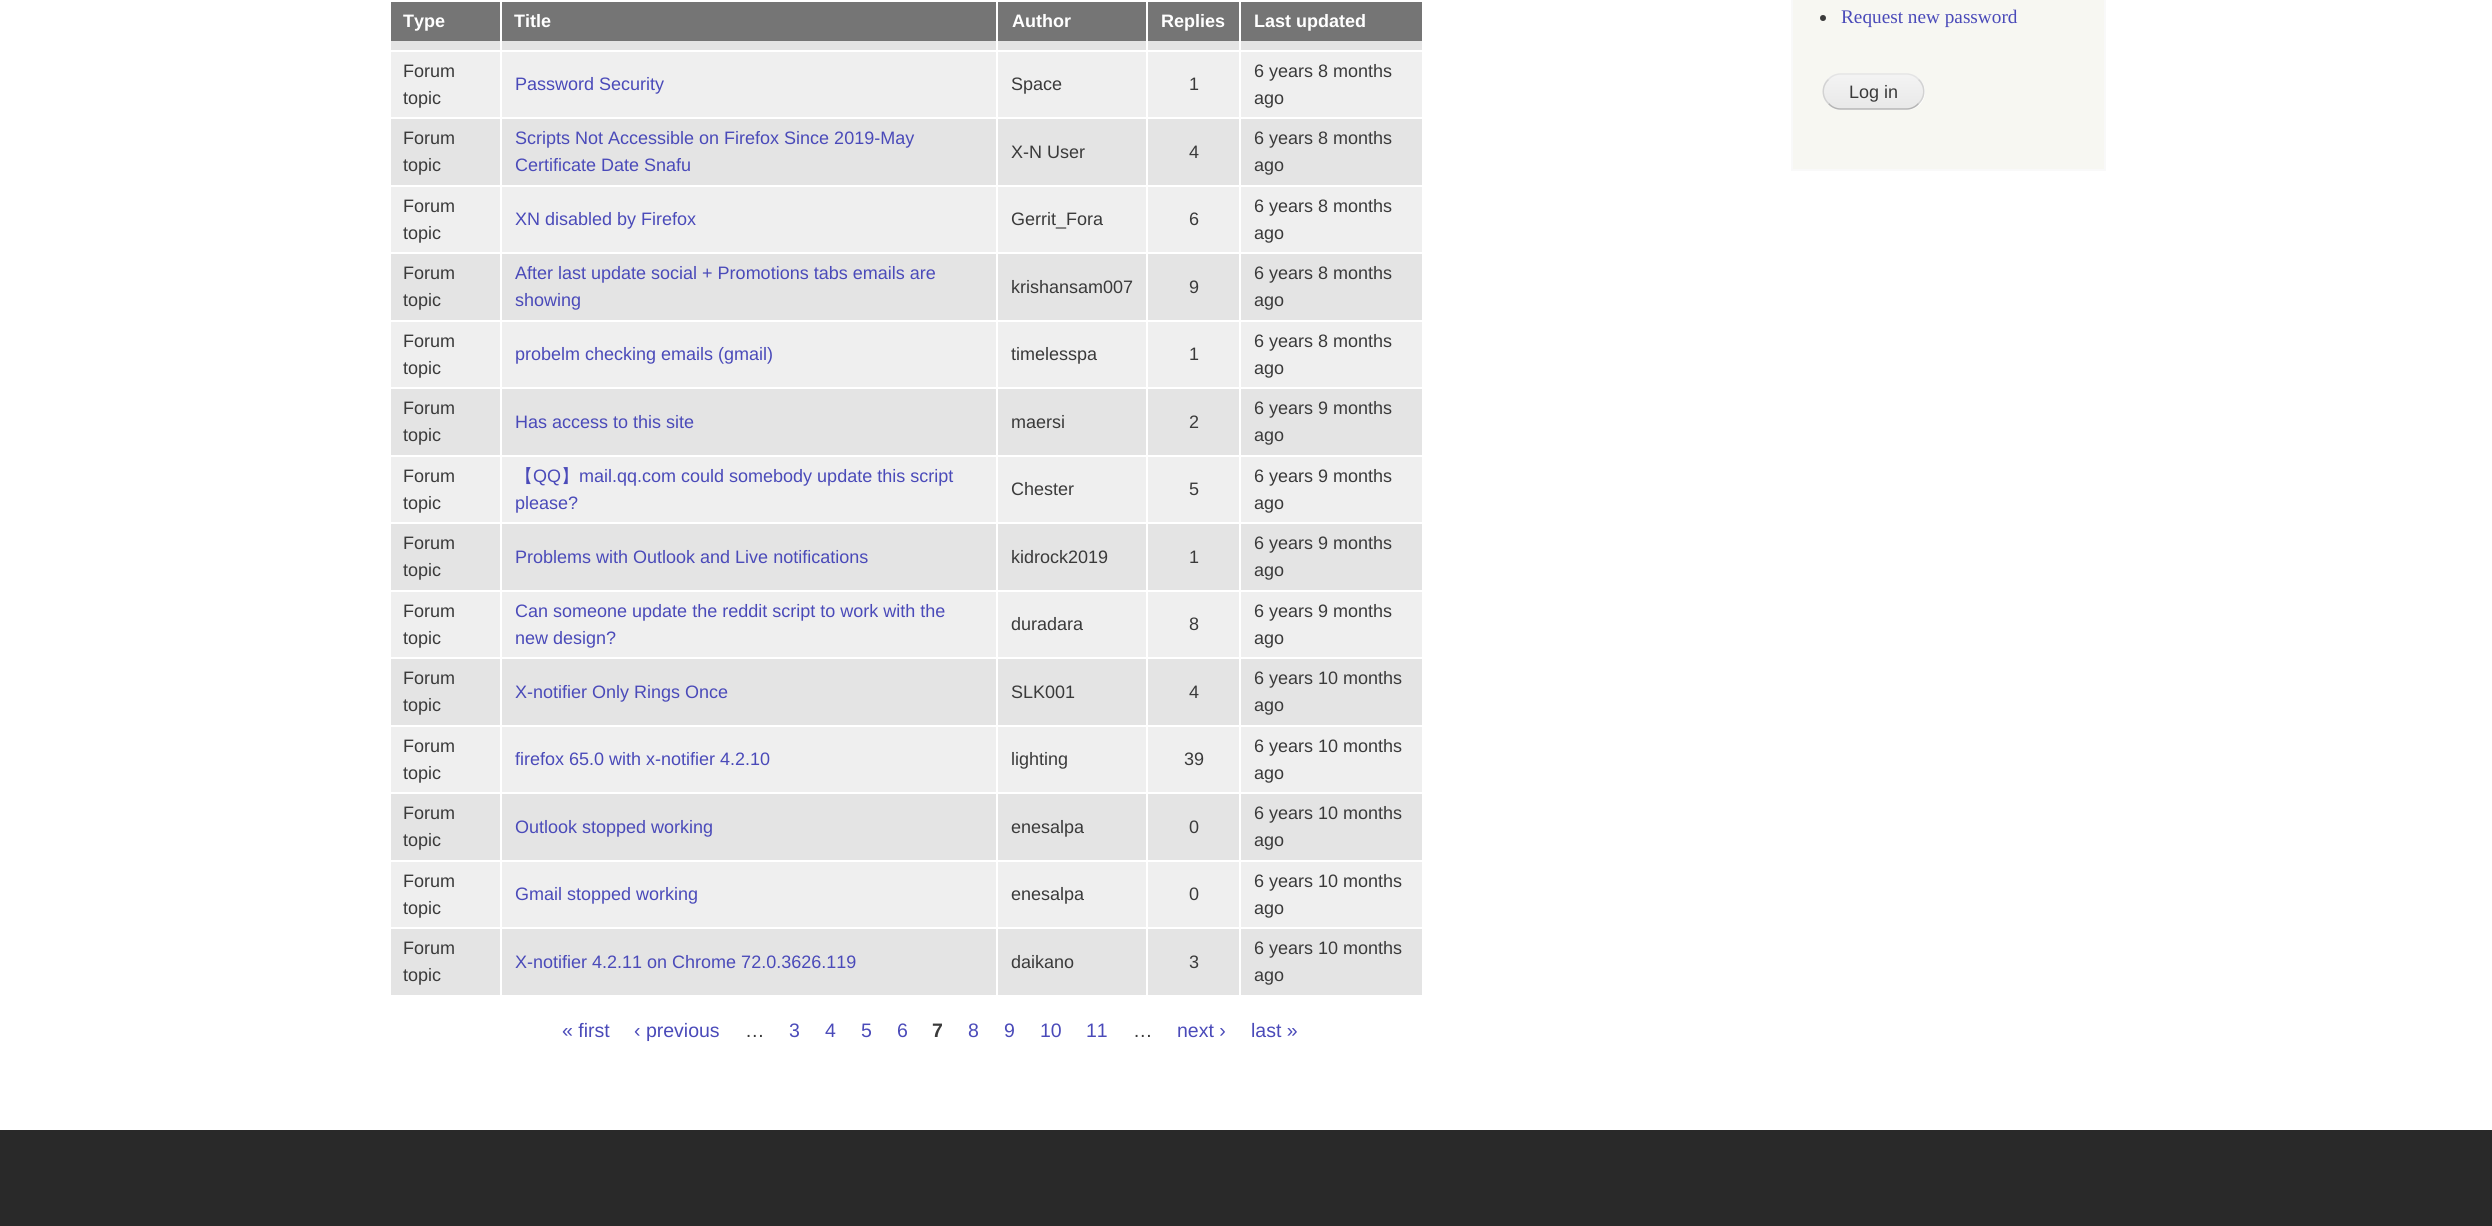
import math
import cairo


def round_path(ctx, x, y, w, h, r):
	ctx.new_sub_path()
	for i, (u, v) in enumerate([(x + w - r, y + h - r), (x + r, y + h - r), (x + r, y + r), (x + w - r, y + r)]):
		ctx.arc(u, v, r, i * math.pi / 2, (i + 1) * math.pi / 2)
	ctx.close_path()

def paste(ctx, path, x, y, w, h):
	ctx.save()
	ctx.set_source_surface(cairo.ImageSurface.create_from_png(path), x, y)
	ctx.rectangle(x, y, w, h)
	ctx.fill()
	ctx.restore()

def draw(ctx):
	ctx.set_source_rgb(1, 1, 1)
	ctx.paint()
	ctx.set_source_rgb(0.459, 0.459, 0.459)
	ctx.rectangle(391, 2, 109, 39)
	ctx.fill()
	ctx.select_font_face('Liberation Sans', cairo.FONT_SLANT_NORMAL, cairo.FONT_WEIGHT_BOLD)
	ctx.set_font_size(18)
	ctx.set_source_rgb(1, 1, 1)
	ctx.move_to(403, 27)
	ctx.show_text('Type')
	ctx.set_source_rgb(0.459, 0.459, 0.459)
	ctx.rectangle(502, 2, 494, 39)
	ctx.fill()
	ctx.set_source_rgb(1, 1, 1)
	ctx.move_to(514, 27)
	ctx.show_text('Title')
	ctx.set_source_rgb(0.459, 0.459, 0.459)
	ctx.rectangle(998, 2, 148, 39)
	ctx.fill()
	ctx.set_source_rgb(1, 1, 1)
	ctx.move_to(1012, 27)
	ctx.show_text('Author')
	ctx.set_source_rgb(0.459, 0.459, 0.459)
	ctx.rectangle(1148, 2, 91, 39)
	ctx.fill()
	ctx.set_source_rgb(1, 1, 1)
	ctx.move_to(1161, 27)
	ctx.show_text('Replies')
	ctx.set_source_rgb(0.459, 0.459, 0.459)
	ctx.rectangle(1241, 2, 181, 39)
	ctx.fill()
	ctx.set_source_rgb(1, 1, 1)
	ctx.move_to(1254, 27)
	ctx.show_text('Last updated')
	ctx.set_source_rgb(0.894, 0.894, 0.894)
	ctx.rectangle(391, 41, 1031, 9)
	ctx.fill()
	ctx.set_source_rgb(0.937, 0.937, 0.937)
	ctx.rectangle(391, 52, 1031, 65)
	ctx.fill()
	ctx.select_font_face('Liberation Sans')
	ctx.set_source_rgb(0.227, 0.227, 0.227)
	ctx.move_to(403, 77)
	ctx.show_text('Forum')
	ctx.move_to(403, 104)
	ctx.show_text('topic')
	ctx.set_source_rgb(0.29, 0.29, 0.725)
	ctx.move_to(515, 90)
	ctx.show_text('Password Security')
	ctx.set_source_rgb(0.227, 0.227, 0.227)
	for x, y, s in [
		(1011, 90, 'Space'),
		(1189, 90, '1'),
		(1254, 77, '6 years 8 months'),
		(1254, 104, 'ago'),
	]:
		ctx.move_to(x, y)
		ctx.show_text(s)
	ctx.set_source_rgb(0.894, 0.894, 0.894)
	ctx.rectangle(391, 119, 1031, 66)
	ctx.fill()
	ctx.set_source_rgb(0.227, 0.227, 0.227)
	ctx.move_to(403, 144)
	ctx.show_text('Forum')
	ctx.move_to(403, 171)
	ctx.show_text('topic')
	ctx.set_source_rgb(0.29, 0.29, 0.725)
	ctx.move_to(515, 144)
	ctx.show_text('Scripts Not Accessible on Firefox Since 2019-May')
	ctx.move_to(515, 171)
	ctx.show_text('Certificate Date Snafu')
	ctx.set_source_rgb(0.227, 0.227, 0.227)
	for x, y, s in [
		(1011, 158, 'X-N User'),
		(1189, 158, '4'),
		(1254, 144, '6 years 8 months'),
		(1254, 171, 'ago'),
	]:
		ctx.move_to(x, y)
		ctx.show_text(s)
	ctx.set_source_rgb(0.937, 0.937, 0.937)
	ctx.rectangle(391, 187, 1031, 65)
	ctx.fill()
	ctx.set_source_rgb(0.227, 0.227, 0.227)
	ctx.move_to(403, 212)
	ctx.show_text('Forum')
	ctx.move_to(403, 239)
	ctx.show_text('topic')
	ctx.set_source_rgb(0.29, 0.29, 0.725)
	ctx.move_to(515, 225)
	ctx.show_text('XN disabled by Firefox')
	ctx.set_source_rgb(0.227, 0.227, 0.227)
	for x, y, s in [
		(1011, 225, 'Gerrit_Fora'),
		(1189, 225, '6'),
		(1254, 212, '6 years 8 months'),
		(1254, 239, 'ago'),
	]:
		ctx.move_to(x, y)
		ctx.show_text(s)
	ctx.set_source_rgb(0.894, 0.894, 0.894)
	ctx.rectangle(391, 254, 1031, 66)
	ctx.fill()
	ctx.set_source_rgb(0.227, 0.227, 0.227)
	ctx.move_to(403, 279)
	ctx.show_text('Forum')
	ctx.move_to(403, 306)
	ctx.show_text('topic')
	ctx.set_source_rgb(0.29, 0.29, 0.725)
	ctx.move_to(515, 279)
	ctx.show_text('After last update social + Promotions tabs emails are')
	ctx.move_to(515, 306)
	ctx.show_text('showing')
	ctx.set_source_rgb(0.227, 0.227, 0.227)
	for x, y, s in [
		(1011, 293, 'krishansam007'),
		(1189, 293, '9'),
		(1254, 279, '6 years 8 months'),
		(1254, 306, 'ago'),
	]:
		ctx.move_to(x, y)
		ctx.show_text(s)
	ctx.set_source_rgb(0.937, 0.937, 0.937)
	ctx.rectangle(391, 322, 1031, 65)
	ctx.fill()
	ctx.set_source_rgb(0.227, 0.227, 0.227)
	ctx.move_to(403, 347)
	ctx.show_text('Forum')
	ctx.move_to(403, 374)
	ctx.show_text('topic')
	ctx.set_source_rgb(0.29, 0.29, 0.725)
	ctx.move_to(515, 360)
	ctx.show_text('probelm checking emails (gmail)')
	ctx.set_source_rgb(0.227, 0.227, 0.227)
	for x, y, s in [
		(1011, 360, 'timelesspa'),
		(1189, 360, '1'),
		(1254, 347, '6 years 8 months'),
		(1254, 374, 'ago'),
	]:
		ctx.move_to(x, y)
		ctx.show_text(s)
	ctx.set_source_rgb(0.894, 0.894, 0.894)
	ctx.rectangle(391, 389, 1031, 66)
	ctx.fill()
	ctx.set_source_rgb(0.227, 0.227, 0.227)
	ctx.move_to(403, 414)
	ctx.show_text('Forum')
	ctx.move_to(403, 441)
	ctx.show_text('topic')
	ctx.set_source_rgb(0.29, 0.29, 0.725)
	ctx.move_to(515, 428)
	ctx.show_text('Has access to this site')
	ctx.set_source_rgb(0.227, 0.227, 0.227)
	for x, y, s in [
		(1011, 428, 'maersi'),
		(1189, 428, '2'),
		(1254, 414, '6 years 9 months'),
		(1254, 441, 'ago'),
	]:
		ctx.move_to(x, y)
		ctx.show_text(s)
	ctx.set_source_rgb(0.937, 0.937, 0.937)
	ctx.rectangle(391, 457, 1031, 65)
	ctx.fill()
	ctx.set_source_rgb(0.227, 0.227, 0.227)
	ctx.move_to(403, 482)
	ctx.show_text('Forum')
	ctx.move_to(403, 509)
	ctx.show_text('topic')
	ctx.select_font_face('WenQuanYi Zen Hei Medium')
	ctx.set_source_rgb(0.29, 0.29, 0.725)
	ctx.move_to(515, 482)
	ctx.show_text('【')
	ctx.select_font_face('Liberation Sans')
	ctx.move_to(533, 482)
	ctx.show_text('QQ')
	ctx.select_font_face('WenQuanYi Zen Hei Medium')
	ctx.move_to(561, 482)
	ctx.show_text('】')
	ctx.select_font_face('Liberation Sans')
	ctx.move_to(579, 482)
	ctx.show_text('mail.qq.com could somebody update this script')
	ctx.move_to(515, 509)
	ctx.show_text('please?')
	ctx.set_source_rgb(0.227, 0.227, 0.227)
	for x, y, s in [
		(1011, 495, 'Chester'),
		(1189, 495, '5'),
		(1254, 482, '6 years 9 months'),
		(1254, 509, 'ago'),
	]:
		ctx.move_to(x, y)
		ctx.show_text(s)
	ctx.set_source_rgb(0.894, 0.894, 0.894)
	ctx.rectangle(391, 524, 1031, 66)
	ctx.fill()
	ctx.set_source_rgb(0.227, 0.227, 0.227)
	ctx.move_to(403, 549)
	ctx.show_text('Forum')
	ctx.move_to(403, 576)
	ctx.show_text('topic')
	ctx.set_source_rgb(0.29, 0.29, 0.725)
	ctx.move_to(515, 563)
	ctx.show_text('Problems with Outlook and Live notifications')
	ctx.set_source_rgb(0.227, 0.227, 0.227)
	for x, y, s in [
		(1011, 563, 'kidrock2019'),
		(1189, 563, '1'),
		(1254, 549, '6 years 9 months'),
		(1254, 576, 'ago'),
	]:
		ctx.move_to(x, y)
		ctx.show_text(s)
	ctx.set_source_rgb(0.937, 0.937, 0.937)
	ctx.rectangle(391, 592, 1031, 65)
	ctx.fill()
	ctx.set_source_rgb(0.227, 0.227, 0.227)
	ctx.move_to(403, 617)
	ctx.show_text('Forum')
	ctx.move_to(403, 644)
	ctx.show_text('topic')
	ctx.set_source_rgb(0.29, 0.29, 0.725)
	ctx.move_to(515, 617)
	ctx.show_text('Can someone update the reddit script to work with the')
	ctx.move_to(515, 644)
	ctx.show_text('new design?')
	ctx.set_source_rgb(0.227, 0.227, 0.227)
	for x, y, s in [
		(1011, 630, 'duradara'),
		(1189, 630, '8'),
		(1254, 617, '6 years 9 months'),
		(1254, 644, 'ago'),
	]:
		ctx.move_to(x, y)
		ctx.show_text(s)
	ctx.set_source_rgb(0.894, 0.894, 0.894)
	ctx.rectangle(391, 659, 1031, 66)
	ctx.fill()
	ctx.set_source_rgb(0.227, 0.227, 0.227)
	ctx.move_to(403, 684)
	ctx.show_text('Forum')
	ctx.move_to(403, 711)
	ctx.show_text('topic')
	ctx.set_source_rgb(0.29, 0.29, 0.725)
	ctx.move_to(515, 698)
	ctx.show_text('X-notifier Only Rings Once')
	ctx.set_source_rgb(0.227, 0.227, 0.227)
	for x, y, s in [
		(1011, 698, 'SLK001'),
		(1189, 698, '4'),
		(1254, 684, '6 years 10 months'),
		(1254, 711, 'ago'),
	]:
		ctx.move_to(x, y)
		ctx.show_text(s)
	ctx.set_source_rgb(0.937, 0.937, 0.937)
	ctx.rectangle(391, 727, 1031, 65)
	ctx.fill()
	ctx.set_source_rgb(0.227, 0.227, 0.227)
	ctx.move_to(403, 752)
	ctx.show_text('Forum')
	ctx.move_to(403, 779)
	ctx.show_text('topic')
	ctx.set_source_rgb(0.29, 0.29, 0.725)
	ctx.move_to(515, 765)
	ctx.show_text('firefox 65.0 with x-notifier 4.2.10')
	ctx.set_source_rgb(0.227, 0.227, 0.227)
	for x, y, s in [
		(1011, 765, 'lighting'),
		(1184, 765, '39'),
		(1254, 752, '6 years 10 months'),
		(1254, 779, 'ago'),
	]:
		ctx.move_to(x, y)
		ctx.show_text(s)
	ctx.set_source_rgb(0.894, 0.894, 0.894)
	ctx.rectangle(391, 794, 1031, 66)
	ctx.fill()
	ctx.set_source_rgb(0.227, 0.227, 0.227)
	ctx.move_to(403, 819)
	ctx.show_text('Forum')
	ctx.move_to(403, 846)
	ctx.show_text('topic')
	ctx.set_source_rgb(0.29, 0.29, 0.725)
	ctx.move_to(515, 833)
	ctx.show_text('Outlook stopped working')
	ctx.set_source_rgb(0.227, 0.227, 0.227)
	for x, y, s in [
		(1011, 833, 'enesalpa'),
		(1189, 833, '0'),
		(1254, 819, '6 years 10 months'),
		(1254, 846, 'ago'),
	]:
		ctx.move_to(x, y)
		ctx.show_text(s)
	ctx.set_source_rgb(0.937, 0.937, 0.937)
	ctx.rectangle(391, 862, 1031, 65)
	ctx.fill()
	ctx.set_source_rgb(0.227, 0.227, 0.227)
	ctx.move_to(403, 887)
	ctx.show_text('Forum')
	ctx.move_to(403, 914)
	ctx.show_text('topic')
	ctx.set_source_rgb(0.29, 0.29, 0.725)
	ctx.move_to(515, 900)
	ctx.show_text('Gmail stopped working')
	ctx.set_source_rgb(0.227, 0.227, 0.227)
	for x, y, s in [
		(1011, 900, 'enesalpa'),
		(1189, 900, '0'),
		(1254, 887, '6 years 10 months'),
		(1254, 914, 'ago'),
	]:
		ctx.move_to(x, y)
		ctx.show_text(s)
	ctx.set_source_rgb(0.894, 0.894, 0.894)
	ctx.rectangle(391, 929, 1031, 66)
	ctx.fill()
	ctx.set_source_rgb(0.227, 0.227, 0.227)
	ctx.move_to(403, 954)
	ctx.show_text('Forum')
	ctx.move_to(403, 981)
	ctx.show_text('topic')
	ctx.set_source_rgb(1, 1, 1)
	ctx.rectangle(500, 41, 2, 955)
	ctx.fill()
	ctx.set_source_rgb(0.29, 0.29, 0.725)
	ctx.move_to(515, 968)
	ctx.show_text('X-notifier 4.2.11 on Chrome 72.0.3626.119')
	ctx.set_source_rgb(1, 1, 1)
	ctx.rectangle(996, 41, 2, 955)
	ctx.fill()
	ctx.set_source_rgb(0.227, 0.227, 0.227)
	ctx.move_to(1011, 968)
	ctx.show_text('daikano')
	ctx.set_source_rgb(1, 1, 1)
	ctx.rectangle(1146, 41, 2, 955)
	ctx.fill()
	ctx.set_source_rgb(0.227, 0.227, 0.227)
	ctx.move_to(1189, 968)
	ctx.show_text('3')
	ctx.set_source_rgb(1, 1, 1)
	ctx.rectangle(1239, 41, 2, 955)
	ctx.fill()
	ctx.set_source_rgb(0.227, 0.227, 0.227)
	ctx.move_to(1254, 954)
	ctx.show_text('6 years 10 months')
	ctx.move_to(1254, 981)
	ctx.show_text('ago')
	ctx.set_font_size(19.5)
	ctx.set_source_rgb(0.29, 0.29, 0.725)
	ctx.move_to(562, 1037)
	ctx.show_text('« first')
	ctx.move_to(634, 1037)
	ctx.show_text('‹ previous')
	ctx.set_source_rgb(0.227, 0.227, 0.227)
	ctx.move_to(745, 1037)
	ctx.show_text('…')
	ctx.set_source_rgb(0.29, 0.29, 0.725)
	for x, y, s in [
		(789, 1037, '3'),
		(825, 1037, '4'),
		(861, 1037, '5'),
		(897, 1037, '6'),
	]:
		ctx.move_to(x, y)
		ctx.show_text(s)
	ctx.select_font_face('Liberation Sans', cairo.FONT_SLANT_NORMAL, cairo.FONT_WEIGHT_BOLD)
	ctx.set_source_rgb(0.227, 0.227, 0.227)
	ctx.move_to(932, 1037)
	ctx.show_text('7')
	ctx.select_font_face('Liberation Sans')
	ctx.set_source_rgb(0.29, 0.29, 0.725)
	for x, y, s in [
		(968, 1037, '8'),
		(1004, 1037, '9'),
		(1040, 1037, '10'),
		(1086, 1037, '11'),
	]:
		ctx.move_to(x, y)
		ctx.show_text(s)
	ctx.set_source_rgb(0.227, 0.227, 0.227)
	ctx.move_to(1133, 1037)
	ctx.show_text('…')
	ctx.set_source_rgb(0.29, 0.29, 0.725)
	ctx.move_to(1177, 1037)
	ctx.show_text('next ›')
	ctx.move_to(1251, 1037)
	ctx.show_text('last »')
	ctx.set_source_rgb(0.965, 0.965, 0.949)
	ctx.rectangle(1792, -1, 313, 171)
	ctx.fill_preserve()
	ctx.set_source_rgb(0.976, 0.976, 0.976)
	ctx.stroke()
	ctx.set_source_rgb(0.231, 0.231, 0.231)
	ctx.arc(1823, 18, 3, 0, 2 * math.pi)
	ctx.fill()
	ctx.select_font_face('Liberation Serif')
	ctx.set_font_size(19.25)
	ctx.set_source_rgb(0.29, 0.29, 0.725)
	ctx.move_to(1841, 23)
	ctx.show_text('Request new password')
	ctx.set_source_rgb(1, 1, 1)
	round_path(ctx, 1823, 74, 102, 36, 18)
	ctx.fill()
	paste(ctx, 'media/1.png', 1823, 74, 101, 35)
	ctx.new_path()
	ctx.move_to(1828.5, 79.5)
	ctx.curve_to(1831.5, 76, 1836, 74, 1840.5, 74)
	ctx.line_to(1906.5, 74)
	ctx.curve_to(1911, 74, 1915.5, 76, 1918.5, 79.5)
	ctx.set_source_rgb(0.894, 0.894, 0.894)
	ctx.set_line_width(1.5)
	ctx.stroke()
	ctx.new_path()
	ctx.move_to(1918.5, 79.5)
	ctx.curve_to(1925.5, 86, 1925.5, 97, 1918.5, 103.5)
	ctx.set_source_rgb(0.824, 0.824, 0.824)
	ctx.stroke()
	ctx.new_path()
	ctx.move_to(1918.5, 103.5)
	ctx.curve_to(1915.5, 107, 1911, 109, 1906.5, 109)
	ctx.line_to(1840.5, 109)
	ctx.curve_to(1836, 109, 1831.5, 107, 1828.5, 103.5)
	ctx.set_source_rgb(0.706, 0.706, 0.706)
	ctx.stroke()
	ctx.new_path()
	ctx.move_to(1828.5, 103.5)
	ctx.curve_to(1821.5, 97, 1821.5, 86, 1828.5, 79.5)
	ctx.set_source_rgb(0.824, 0.824, 0.824)
	ctx.stroke()
	ctx.select_font_face('Liberation Sans')
	ctx.set_font_size(18)
	ctx.set_source_rgb(0.227, 0.227, 0.227)
	ctx.move_to(1849, 98)
	ctx.show_text('Log in')
	ctx.set_source_rgb(0.161, 0.161, 0.161)
	ctx.rectangle(0, 1130, 2492, 96)
	ctx.fill()


surface = cairo.ImageSurface(cairo.FORMAT_RGB24, 2492, 1226)
ctx = cairo.Context(surface)
options = cairo.FontOptions()
options.set_hint_metrics(cairo.HINT_METRICS_OFF)
options.set_hint_style(cairo.HINT_STYLE_NONE)
ctx.set_font_options(options)
ctx.set_miter_limit(4)
draw(ctx)
surface.write_to_png('image.png')
